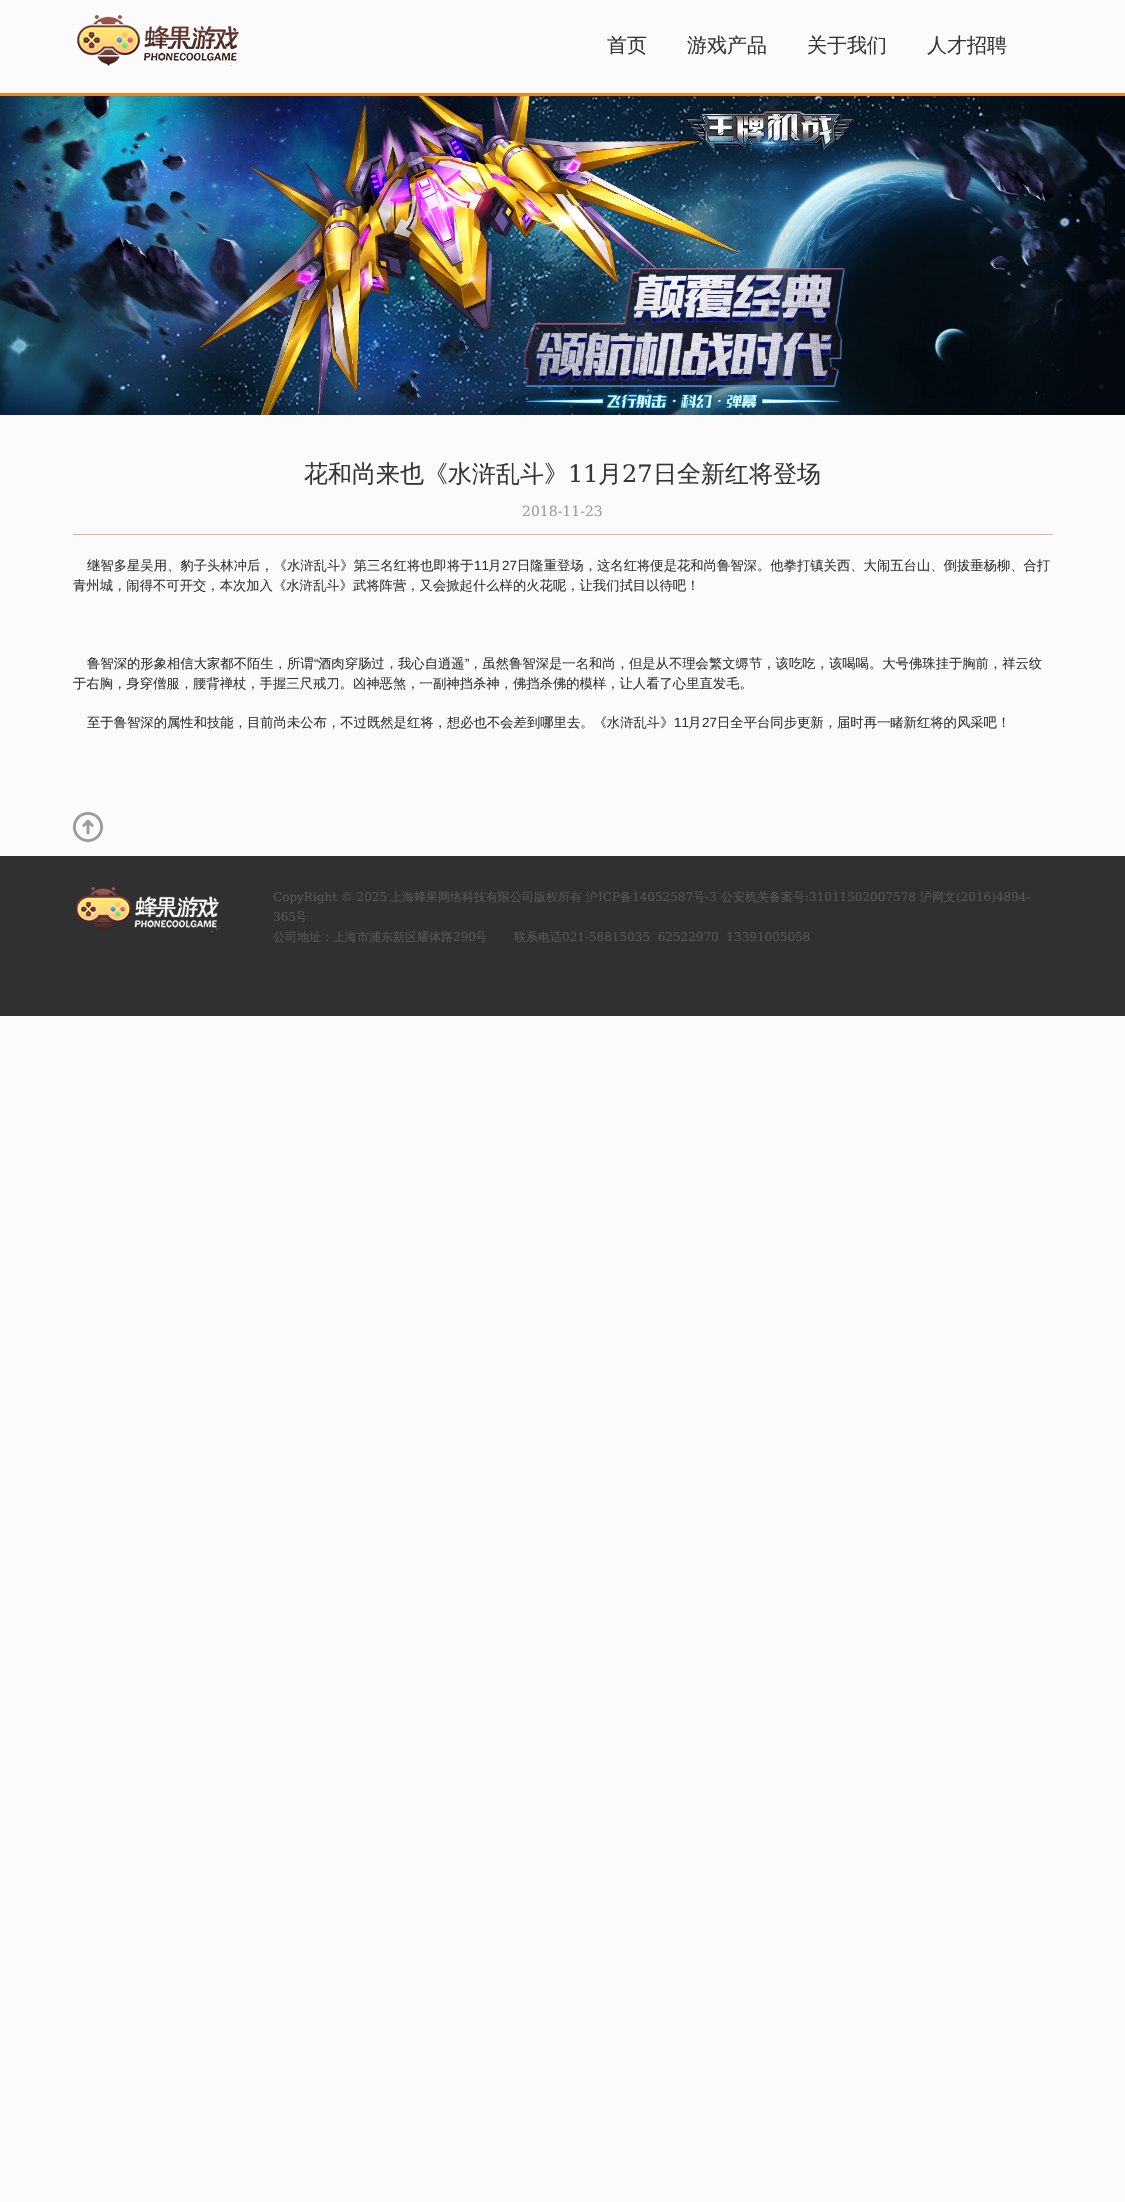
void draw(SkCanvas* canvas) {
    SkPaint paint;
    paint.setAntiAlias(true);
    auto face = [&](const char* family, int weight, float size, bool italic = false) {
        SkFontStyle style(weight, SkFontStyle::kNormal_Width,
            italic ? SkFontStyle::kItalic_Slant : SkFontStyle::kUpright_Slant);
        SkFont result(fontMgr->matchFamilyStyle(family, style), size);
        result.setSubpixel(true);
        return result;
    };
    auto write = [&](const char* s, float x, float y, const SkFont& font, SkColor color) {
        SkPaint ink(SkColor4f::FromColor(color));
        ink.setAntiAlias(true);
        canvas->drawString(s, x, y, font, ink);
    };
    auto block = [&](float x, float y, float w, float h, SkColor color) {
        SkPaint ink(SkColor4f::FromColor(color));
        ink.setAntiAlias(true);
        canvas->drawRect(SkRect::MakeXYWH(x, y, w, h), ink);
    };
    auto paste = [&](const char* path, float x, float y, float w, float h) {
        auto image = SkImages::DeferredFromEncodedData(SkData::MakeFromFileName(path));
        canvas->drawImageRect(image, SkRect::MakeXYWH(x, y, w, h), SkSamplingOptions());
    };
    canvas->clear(SkColorSetRGB(251, 251, 251));
    block(0, 93, 1125, 3, SkColorSetRGB(240, 133, 25));
    paste("pic1.png", 77, 15, 164, 51);
    auto kFont1 = face("WenQuanYi Zen Hei", 500, 20);
    write("首页", 607, 52, kFont1, SkColorSetRGB(53, 53, 53));
    write("游戏产品", 687, 52, kFont1, SkColorSetRGB(53, 53, 53));
    write("关于我们", 807, 52, kFont1, SkColorSetRGB(53, 53, 53));
    write("人才招聘", 927, 52, kFont1, SkColorSetRGB(53, 53, 53));
    paste("pic2.png", 0, 96, 1125, 319);
    auto kFont2 = face("WenQuanYi Zen Hei", 500, 24);
    write("花和尚来也《水浒乱斗》", 304, 482, kFont2, SkColorSetRGB(53, 53, 53));
    auto kFont3 = face("DejaVu Serif", 400, 24);
    write("11", 568, 482, kFont3, SkColorSetRGB(53, 53, 53));
    write("月", 598, 482, kFont2, SkColorSetRGB(53, 53, 53));
    write("27", 622, 482, kFont3, SkColorSetRGB(53, 53, 53));
    write("日全新红将登场", 653, 482, kFont2, SkColorSetRGB(53, 53, 53));
    block(73, 534, 980, 1, SkColorSetRGB(211, 182, 157));
    auto kFont4 = face("DejaVu Serif", 400, 14);
    write("2018-11-23", 522, 516, kFont4, SkColorSetRGB(155, 155, 155));
    auto kFont5 = face("WenQuanYi Zen Hei", 500, 13.33f);
    write("继智多星吴用、豹子头林冲后，《水浒乱斗》第三名红将也即将于", 87, 570, kFont5, SkColorSetRGB(53, 53, 53));
    auto kFont6 = face("Liberation Sans", 400, 13.33f);
    write("11", 474, 570, kFont6, SkColorSetRGB(53, 53, 53));
    write("月", 488, 570, kFont5, SkColorSetRGB(53, 53, 53));
    write("27", 502, 570, kFont6, SkColorSetRGB(53, 53, 53));
    write("日隆重登场，这名红将便是花和尚鲁智深。他拳打镇关西、大闹五台山、倒拔垂杨柳、合打", 517, 570, kFont5, SkColorSetRGB(53, 53, 53));
    write("青州城，闹得不可开交，本次加入《水浒乱斗》武将阵营，又会掀起什么样的火花呢，让我们拭目以待吧！", 73, 590, kFont5, SkColorSetRGB(53, 53, 53));
    write("鲁智深的形象相信大家都不陌生，所谓", 87, 668, kFont5, SkColorSetRGB(53, 53, 53));
    write("“", 314, 668, kFont6, SkColorSetRGB(53, 53, 53));
    write("酒肉穿肠过，我心自逍遥", 318, 668, kFont5, SkColorSetRGB(53, 53, 53));
    write("”", 465, 668, kFont6, SkColorSetRGB(53, 53, 53));
    write("，虽然鲁智深是一名和尚，但是从不理会繁文缛节，该吃吃，该喝喝。大号佛珠挂于胸前，祥云纹", 469, 668, kFont5, SkColorSetRGB(53, 53, 53));
    write("于右胸，身穿僧服，腰背禅杖，手握三尺戒刀。凶神恶煞，一副神挡杀神，佛挡杀佛的模样，让人看了心里直发毛。", 73, 688, kFont5, SkColorSetRGB(53, 53, 53));
    write("至于鲁智深的属性和技能，目前尚未公布，不过既然是红将，想必也不会差到哪里去。《水浒乱斗》", 87, 727, kFont5, SkColorSetRGB(53, 53, 53));
    write("11", 674, 727, kFont6, SkColorSetRGB(53, 53, 53));
    write("月", 688, 727, kFont5, SkColorSetRGB(53, 53, 53));
    write("27", 702, 727, kFont6, SkColorSetRGB(53, 53, 53));
    write("日全平台同步更新，届时再一睹新红将的风采吧！", 717, 727, kFont5, SkColorSetRGB(53, 53, 53));
    paste("pic3.png", 73, 812, 30, 30);
    block(0, 856, 1125, 160, SkColorSetRGB(48, 48, 48));
    paste("pic4.png", 76, 887, 145, 45);
    auto kFont7 = face("DejaVu Serif", 400, 12);
    write("CopyRight © 2025", 273, 901, kFont7, SkColorSetRGB(87, 87, 86));
    auto kFont8 = face("WenQuanYi Zen Hei", 500, 12);
    write("上海蜂果网络科技有限公司版权所有 沪", 390, 901, kFont8, SkColorSetRGB(87, 87, 86));
    write("ICP", 598, 901, kFont7, SkColorSetRGB(87, 87, 86));
    write("备", 620, 901, kFont8, SkColorSetRGB(87, 87, 86));
    write("14052587", 632, 901, kFont7, SkColorSetRGB(87, 87, 86));
    write("号", 693, 901, kFont8, SkColorSetRGB(87, 87, 86));
    write("-3", 705, 901, kFont7, SkColorSetRGB(87, 87, 86));
    write("公安机关备案号", 721, 901, kFont8, SkColorSetRGB(87, 87, 86));
    write(":31011502007578", 805, 901, kFont7, SkColorSetRGB(87, 87, 86));
    write("沪网文", 920, 901, kFont8, SkColorSetRGB(87, 87, 86));
    write("(2016)4894-", 956, 901, kFont7, SkColorSetRGB(87, 87, 86));
    write("365", 273, 921, kFont7, SkColorSetRGB(87, 87, 86));
    write("号", 295, 921, kFont8, SkColorSetRGB(87, 87, 86));
    write("公司地址：上海市浦东新区耀体路", 273, 941, kFont8, SkColorSetRGB(87, 87, 86));
    write("290", 453, 941, kFont7, SkColorSetRGB(87, 87, 86));
    write("号", 475, 941, kFont8, SkColorSetRGB(87, 87, 86));
    write("联系电话", 514, 941, kFont8, SkColorSetRGB(87, 87, 86));
    write("021-58815035  62522970  13391005058", 562, 941, kFont7, SkColorSetRGB(87, 87, 86));
}
